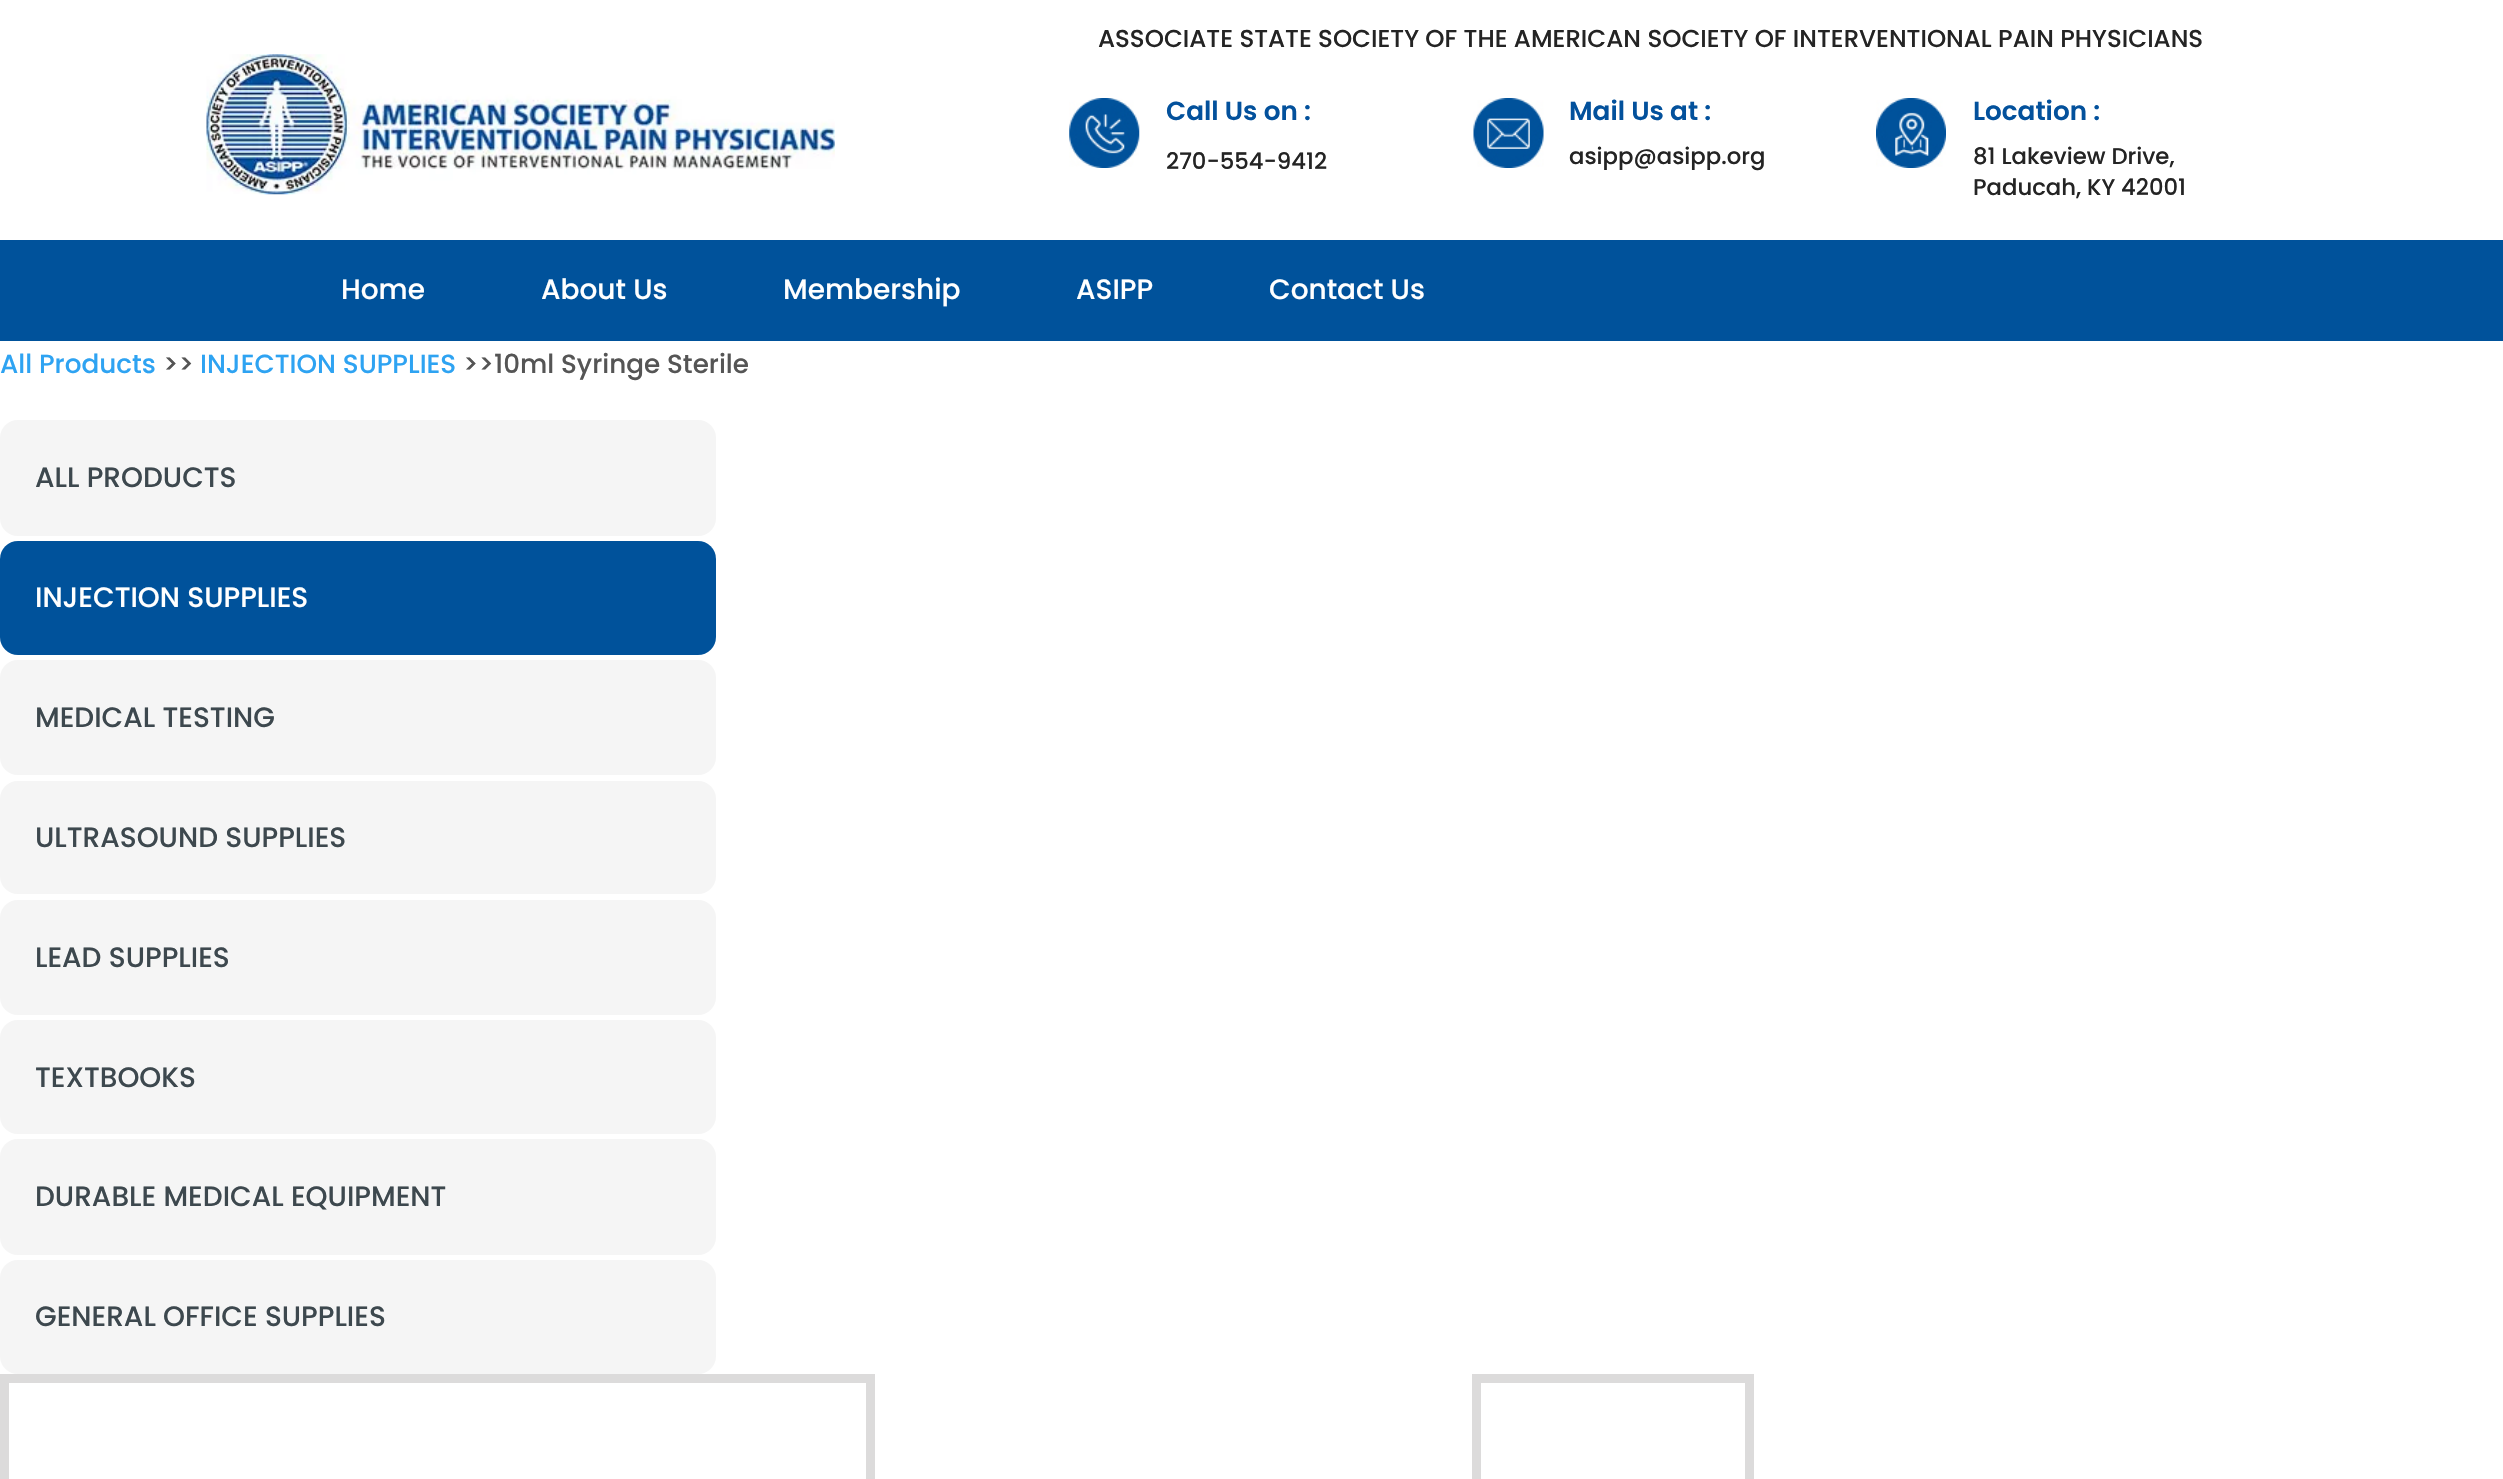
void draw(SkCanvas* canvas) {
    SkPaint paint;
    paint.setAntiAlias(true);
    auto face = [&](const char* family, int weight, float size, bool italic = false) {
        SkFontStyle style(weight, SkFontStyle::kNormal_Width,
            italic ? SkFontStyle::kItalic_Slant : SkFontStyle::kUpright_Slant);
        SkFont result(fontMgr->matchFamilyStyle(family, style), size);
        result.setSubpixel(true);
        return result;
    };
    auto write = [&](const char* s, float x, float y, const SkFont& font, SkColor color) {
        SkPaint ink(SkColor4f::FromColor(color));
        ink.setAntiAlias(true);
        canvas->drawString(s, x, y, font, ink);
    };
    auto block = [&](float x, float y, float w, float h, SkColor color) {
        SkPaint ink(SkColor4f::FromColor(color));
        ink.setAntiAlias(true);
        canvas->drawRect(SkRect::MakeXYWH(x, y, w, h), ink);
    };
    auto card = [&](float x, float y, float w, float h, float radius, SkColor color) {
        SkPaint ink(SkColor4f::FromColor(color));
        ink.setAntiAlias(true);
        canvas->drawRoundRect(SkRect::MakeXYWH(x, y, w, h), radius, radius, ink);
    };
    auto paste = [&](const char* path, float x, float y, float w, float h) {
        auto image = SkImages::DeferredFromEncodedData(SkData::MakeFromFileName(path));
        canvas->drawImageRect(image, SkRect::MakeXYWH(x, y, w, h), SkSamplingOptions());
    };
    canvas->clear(SK_ColorWHITE);
    paste("pic1.png", 206, 54, 629, 141);
    auto kFont1 = face("Poppins", 500, 24.5f);
    write("ASSOCIATE STATE SOCIETY OF THE AMERICAN SOCIETY OF INTERVENTIONAL PAIN PHYSICIANS", 1098, 47, kFont1, SkColorSetRGB(36, 36, 36));
    paste("pic2.png", 1069, 98, 71, 70);
    auto kFont2 = face("Poppins", 600, 26.25f);
    write("Call Us on :", 1166, 120, kFont2, SkColorSetRGB(3, 81, 156));
    auto kFont3 = face("Poppins", 500, 22.75f);
    write("270-554-9412", 1166, 169, kFont3, SkColorSetRGB(36, 36, 36));
    paste("pic3.png", 1473, 98, 71, 70);
    write("Mail Us at :", 1569, 120, kFont2, SkColorSetRGB(3, 81, 156));
    write("asipp@asipp.org", 1569, 164, kFont3, SkColorSetRGB(36, 36, 36));
    paste("pic4.png", 1876, 98, 70, 70);
    write("Location :", 1973, 120, kFont2, SkColorSetRGB(3, 81, 156));
    write("81 Lakeview Drive,", 1973, 164, kFont3, SkColorSetRGB(36, 36, 36));
    write("Paducah, KY 42001", 1973, 195, kFont3, SkColorSetRGB(36, 36, 36));
    block(0, 240, 2503, 101, SkColorSetRGB(0, 82, 155));
    auto kFont4 = face("Poppins", 500, 28);
    write("Home", 341, 299, kFont4, SK_ColorWHITE);
    write("About Us", 541, 299, kFont4, SK_ColorWHITE);
    write("Membership", 783, 299, kFont4, SK_ColorWHITE);
    write("ASIPP", 1076, 299, kFont4, SK_ColorWHITE);
    write("Contact Us", 1269, 299, kFont4, SK_ColorWHITE);
    auto kFont5 = face("Poppins", 500, 26.25f);
    write("All Products", 0, 373, kFont5, SkColorSetRGB(46, 163, 242));
    write(">>", 163, 373, kFont5, SkColorSetRGB(85, 85, 85));
    write("INJECTION SUPPLIES", 200, 373, kFont5, SkColorSetRGB(46, 163, 242));
    write(">>10ml Syringe Sterile", 463, 373, kFont5, SkColorSetRGB(85, 85, 85));
    card(0, 420, 716, 116, 18, SkColorSetRGB(245, 245, 245));
    write("ALL PRODUCTS", 35, 487, kFont4, SkColorSetRGB(61, 72, 78));
    card(0, 541, 716, 114, 18, SkColorSetRGB(0, 82, 155));
    write("INJECTION SUPPLIES", 35, 607, kFont4, SK_ColorWHITE);
    card(0, 660, 716, 115, 18, SkColorSetRGB(245, 245, 245));
    write("MEDICAL TESTING", 35, 727, kFont4, SkColorSetRGB(61, 72, 78));
    card(0, 781, 716, 113, 18, SkColorSetRGB(245, 245, 245));
    write("ULTRASOUND SUPPLIES", 35, 847, kFont4, SkColorSetRGB(61, 72, 78));
    card(0, 900, 716, 115, 18, SkColorSetRGB(245, 245, 245));
    write("LEAD SUPPLIES", 35, 967, kFont4, SkColorSetRGB(61, 72, 78));
    card(0, 1020, 716, 114, 18, SkColorSetRGB(245, 245, 245));
    write("TEXTBOOKS", 35, 1087, kFont4, SkColorSetRGB(61, 72, 78));
    card(0, 1139, 716, 116, 18, SkColorSetRGB(245, 245, 245));
    write("DURABLE MEDICAL EQUIPMENT", 35, 1206, kFont4, SkColorSetRGB(61, 72, 78));
    card(0, 1260, 716, 114, 18, SkColorSetRGB(245, 245, 245));
    write("GENERAL OFFICE SUPPLIES", 35, 1326, kFont4, SkColorSetRGB(61, 72, 78));
    paint.setStyle(SkPaint::kStroke_Style);
    paint.setStrokeWidth(9);
    paint.setColor(SkColorSetRGB(220, 219, 219));
    canvas->drawRect(SkRect::MakeXYWH(4.5f, 1378.5f, 866, 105), paint);
    canvas->drawRect(SkRect::MakeXYWH(1476.5f, 1378.5f, 273, 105), paint);
}
